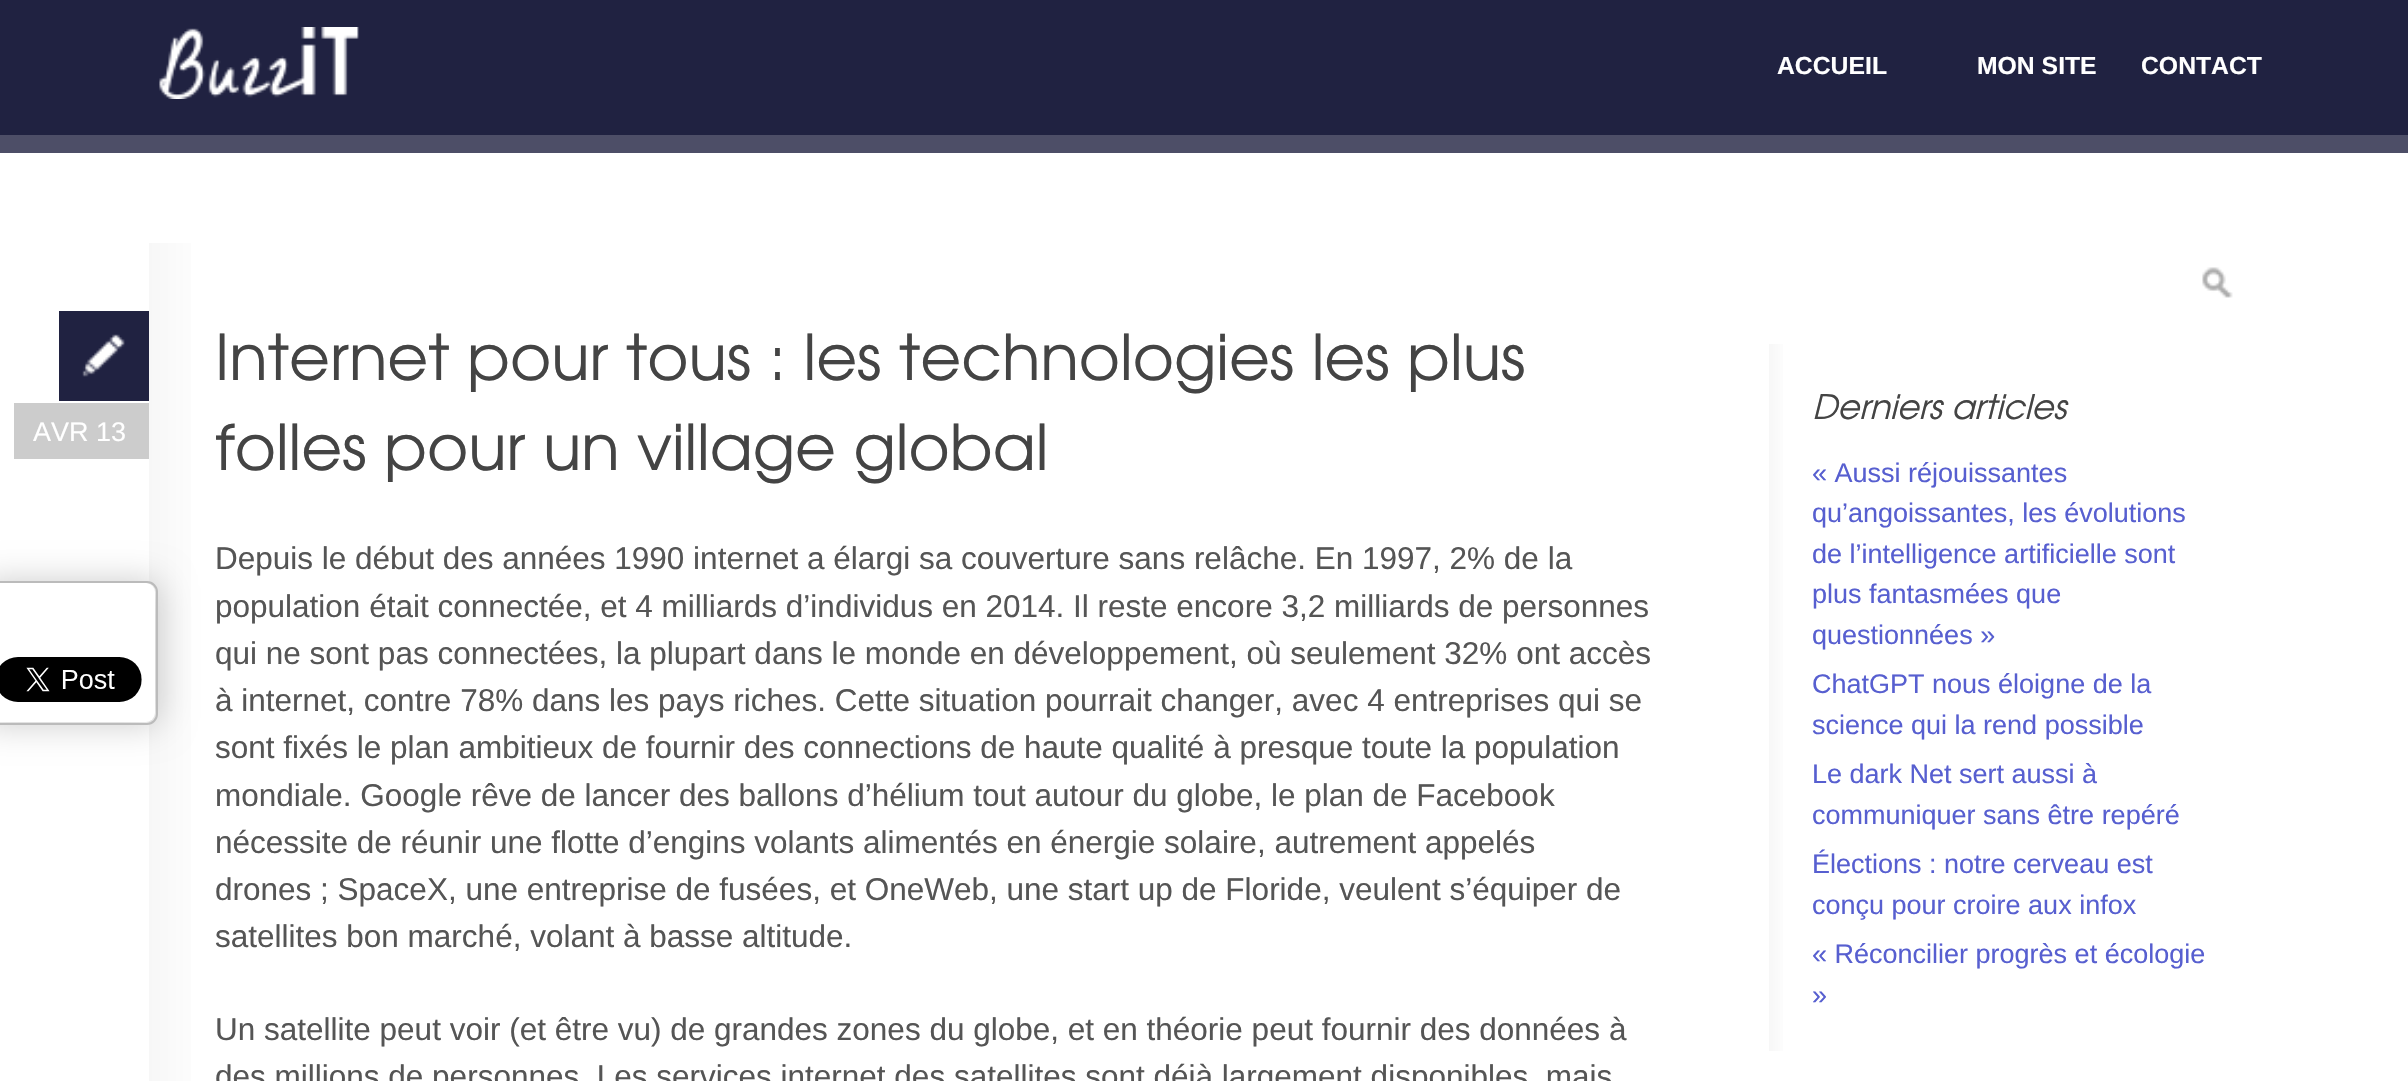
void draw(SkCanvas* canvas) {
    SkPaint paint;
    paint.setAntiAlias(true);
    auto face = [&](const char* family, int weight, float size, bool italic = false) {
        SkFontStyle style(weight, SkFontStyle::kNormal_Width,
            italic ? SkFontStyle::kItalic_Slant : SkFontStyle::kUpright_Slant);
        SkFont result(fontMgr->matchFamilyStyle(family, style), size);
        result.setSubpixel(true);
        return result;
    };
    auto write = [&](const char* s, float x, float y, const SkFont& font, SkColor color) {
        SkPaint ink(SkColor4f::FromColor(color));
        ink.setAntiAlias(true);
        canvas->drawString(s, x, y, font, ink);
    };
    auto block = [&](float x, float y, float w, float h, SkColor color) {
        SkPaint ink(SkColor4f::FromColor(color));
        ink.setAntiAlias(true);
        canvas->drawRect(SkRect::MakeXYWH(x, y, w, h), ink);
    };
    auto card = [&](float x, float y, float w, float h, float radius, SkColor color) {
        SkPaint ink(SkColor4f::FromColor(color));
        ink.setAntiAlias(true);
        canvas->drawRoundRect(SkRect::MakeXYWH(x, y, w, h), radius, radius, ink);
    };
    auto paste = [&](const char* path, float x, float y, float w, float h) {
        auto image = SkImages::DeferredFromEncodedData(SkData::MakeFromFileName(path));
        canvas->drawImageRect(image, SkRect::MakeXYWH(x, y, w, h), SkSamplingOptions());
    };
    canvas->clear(SK_ColorWHITE);
    block(0, 135, 2408, 18, SkColorSetRGB(77, 78, 103));
    block(0, 0, 2408, 135, SkColorSetRGB(32, 34, 65));
    paste("pic1.png", 159, 27, 200, 72);
    auto kFont1 = face("Liberation Sans", 700, 24.75f);
    write("ACCUEIL", 1777, 74, kFont1, SK_ColorWHITE);
    write("MON SITE", 1977, 74, kFont1, SK_ColorWHITE);
    write("CONTACT", 2141, 74, kFont1, SK_ColorWHITE);
    {
        const SkColor colors[] = {SkColorSetRGB(247, 247, 247), SK_ColorWHITE, SK_ColorWHITE};
        const float stops[] = {0, 0.04f, 1};
        const SkPoint ends[] = {{148, 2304}, {1724, 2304}};
        paint.setShader(SkGradientShader::MakeLinear(ends, colors, stops, 3, SkTileMode::kClamp));
        paint.setAlpha(255);
    }
    canvas->drawRect(SkRect::MakeXYWH(149, 243, 42, 838), paint);
    block(59, 311, 90, 90, SkColorSetRGB(32, 34, 65));
    paste("pic2.png", 82, 334, 43, 43);
    auto kFont2 = face("TeX Gyre Adventor", 400, 63);
    write("Internet pour tous : les technologies les plus", 215, 380, kFont2, SkColorSetRGB(68, 68, 68));
    write("folles pour un village global", 215, 470, kFont2, SkColorSetRGB(68, 68, 68));
    block(14, 403, 135, 56, SkColorSetRGB(204, 204, 204));
    auto kFont3 = face("Liberation Sans", 400, 27);
    write("AVR 13", 33, 441, kFont3, SK_ColorWHITE);
    auto kFont4 = face("Liberation Sans", 400, 31.5f);
    write("Depuis le début des années 1990 internet a élargi sa couverture sans relâche. En 1997, 2% de la", 215, 569, kFont4, SkColorSetRGB(85, 85, 85));
    write("population était connectée, et 4 milliards d’individus en 2014. Il reste encore 3,2 milliards de personnes", 215, 617, kFont4, SkColorSetRGB(85, 85, 85));
    write("qui ne sont pas connectées, la plupart dans le monde en développement, où seulement 32% ont accès", 215, 664, kFont4, SkColorSetRGB(85, 85, 85));
    write("à internet, contre 78% dans les pays riches. Cette situation pourrait changer, avec 4 entreprises qui se", 215, 711, kFont4, SkColorSetRGB(85, 85, 85));
    write("sont fixés le plan ambitieux de fournir des connections de haute qualité à presque toute la population", 215, 758, kFont4, SkColorSetRGB(85, 85, 85));
    write("mondiale. Google rêve de lancer des ballons d’hélium tout autour du globe, le plan de Facebook", 215, 806, kFont4, SkColorSetRGB(85, 85, 85));
    write("nécessite de réunir une flotte d’engins volants alimentés en énergie solaire, autrement appelés", 215, 853, kFont4, SkColorSetRGB(85, 85, 85));
    write("drones ; SpaceX, une entreprise de fusées, et OneWeb, une start up de Floride, veulent s’équiper de", 215, 900, kFont4, SkColorSetRGB(85, 85, 85));
    write("satellites bon marché, volant à basse altitude.", 215, 947, kFont4, SkColorSetRGB(85, 85, 85));
    write("Un satellite peut voir (et être vu) de grandes zones du globe, et en théorie peut fournir des données à", 215, 1040, kFont4, SkColorSetRGB(85, 85, 85));
    write("des millions de personnes. Les services internet des satellites sont déjà largement disponibles, mais", 215, 1087, kFont4, SkColorSetRGB(85, 85, 85));
    paste("pic3.png", 2202, 267, 31, 31);
    {
        const SkColor colors[] = {SkColorSetRGB(247, 247, 247), SK_ColorWHITE, SK_ColorWHITE};
        const float stops[] = {0, 0.04f, 1};
        const SkPoint ends[] = {{1769, 698}, {2264, 698}};
        paint.setShader(SkGradientShader::MakeLinear(ends, colors, stops, 3, SkTileMode::kClamp));
        paint.setAlpha(255);
    }
    canvas->drawRect(SkRect::MakeXYWH(1769, 344, 14, 707), paint);
    auto kFont5 = face("TeX Gyre Adventor", 400, 33.75f, true);
    write("Derniers articles", 1812, 419, kFont5, SkColorSetRGB(68, 68, 68));
    write("« Aussi réjouissantes", 1812, 482, kFont3, SkColorSetRGB(87, 95, 208));
    write("qu’angoissantes, les évolutions", 1812, 522, kFont3, SkColorSetRGB(87, 95, 208));
    write("de l’intelligence artificielle sont", 1812, 563, kFont3, SkColorSetRGB(87, 95, 208));
    write("plus fantasmées que", 1812, 603, kFont3, SkColorSetRGB(87, 95, 208));
    write("questionnées »", 1812, 644, kFont3, SkColorSetRGB(87, 95, 208));
    write("ChatGPT nous éloigne de la", 1812, 693, kFont3, SkColorSetRGB(87, 95, 208));
    write("science qui la rend possible", 1812, 734, kFont3, SkColorSetRGB(87, 95, 208));
    write("Le dark Net sert aussi à", 1812, 783, kFont3, SkColorSetRGB(87, 95, 208));
    write("communiquer sans être repéré", 1812, 824, kFont3, SkColorSetRGB(87, 95, 208));
    write("Élections : notre cerveau est", 1812, 873, kFont3, SkColorSetRGB(87, 95, 208));
    write("conçu pour croire aux infox", 1812, 914, kFont3, SkColorSetRGB(87, 95, 208));
    write("« Réconcilier progrès et écologie", 1812, 963, kFont3, SkColorSetRGB(87, 95, 208));
    write("»", 1812, 1004, kFont3, SkColorSetRGB(87, 95, 208));
    paint.setShader(nullptr);
    paint.setColor(SkColorSetARGB(51, 0, 0, 0));
    paint.setMaskFilter(SkMaskFilter::MakeBlur(kNormal_SkBlurStyle, 17));
    canvas->drawRoundRect(SkRect::MakeXYWH(-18, 581, 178, 144), 11, 11, paint);
    paint.setMaskFilter(nullptr);
    card(-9, 583, 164, 139, 9, SK_ColorWHITE);
    paint.setStyle(SkPaint::kStroke_Style);
    paint.setStrokeWidth(2);
    paint.setColor(SkColorSetRGB(187, 187, 187));
    canvas->drawRoundRect(SkRect::MakeXYWH(-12, 582, 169, 142), 10, 10, paint);
    paste("pic4.png", 0, 657, 142, 45);
}
